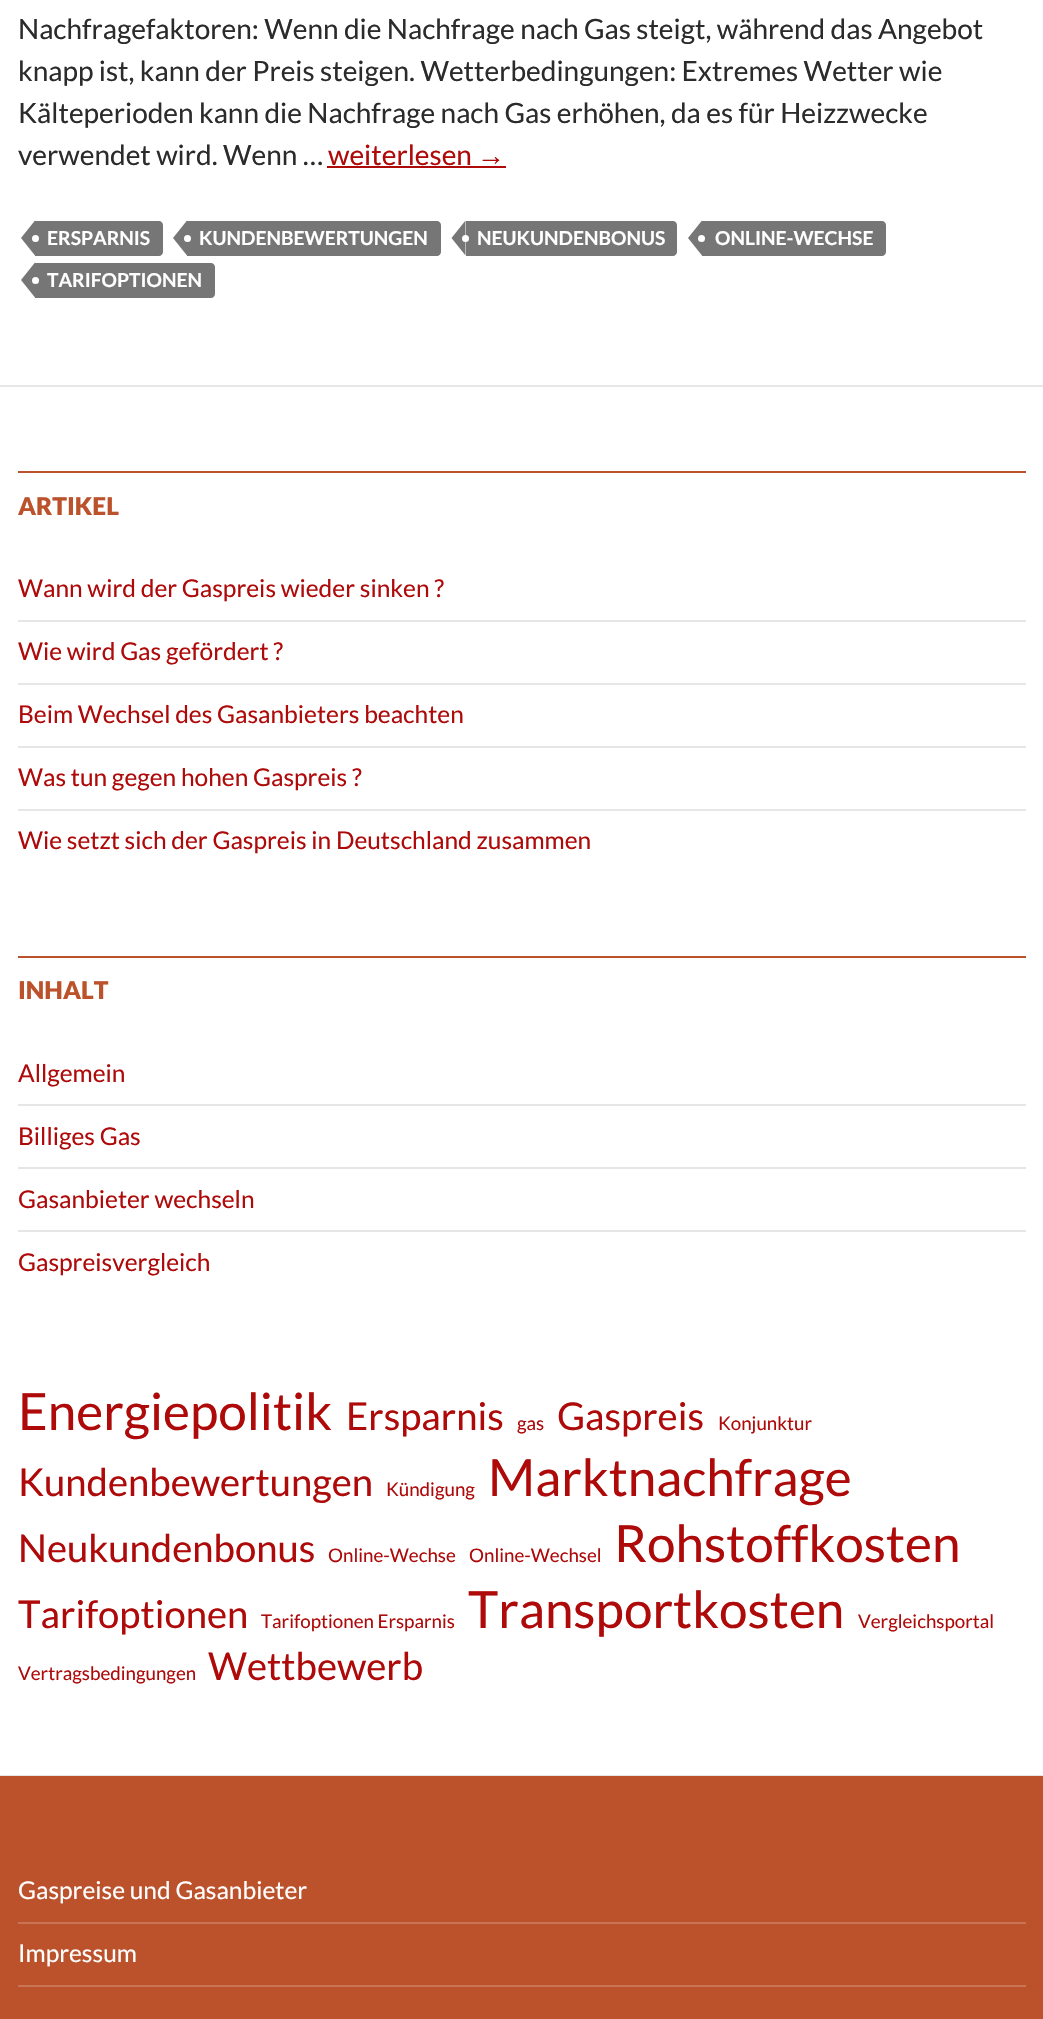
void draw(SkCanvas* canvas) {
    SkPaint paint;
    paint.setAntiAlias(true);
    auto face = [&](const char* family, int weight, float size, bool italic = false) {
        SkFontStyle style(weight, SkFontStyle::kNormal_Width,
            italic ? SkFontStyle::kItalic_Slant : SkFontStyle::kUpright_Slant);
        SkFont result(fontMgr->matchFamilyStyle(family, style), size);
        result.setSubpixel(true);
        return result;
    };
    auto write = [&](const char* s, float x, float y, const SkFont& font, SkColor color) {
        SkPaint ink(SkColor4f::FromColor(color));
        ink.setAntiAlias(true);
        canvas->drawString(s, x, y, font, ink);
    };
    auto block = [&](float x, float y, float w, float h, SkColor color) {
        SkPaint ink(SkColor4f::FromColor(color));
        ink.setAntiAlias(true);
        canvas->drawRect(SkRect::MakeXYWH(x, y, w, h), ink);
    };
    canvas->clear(SK_ColorWHITE);
    auto kFont1 = face("Lato", 400, 28);
    write("Nachfragefaktoren: Wenn die Nachfrage nach Gas steigt, während das Angebot", 18, 39, kFont1, SkColorSetRGB(43, 43, 43));
    write("knapp ist, kann der Preis steigen. Wetterbedingungen: Extremes Wetter wie", 18, 81, kFont1, SkColorSetRGB(43, 43, 43));
    write("Kälteperioden kann die Nachfrage nach Gas erhöhen, da es für Heizzwecke", 18, 123, kFont1, SkColorSetRGB(43, 43, 43));
    write("verwendet wird. Wenn …", 18, 165, kFont1, SkColorSetRGB(43, 43, 43));
    write("weiterlesen", 328, 165, kFont1, SkColorSetRGB(175, 10, 10));
    auto kFont2 = face("Liberation Sans", 400, 28);
    write("→", 477, 165, kFont2, SkColorSetRGB(175, 10, 10));
    block(327, 166, 179, 2, SkColorSetRGB(175, 10, 10));
    paint.setColor(SkColorSetRGB(118, 118, 118));
    canvas->drawPath(SkPathBuilder().moveTo(35, 221).lineTo(159, 221).cubicTo(161, 221, 163, 223, 163, 225).lineTo(163, 252).cubicTo(163, 254, 161, 256, 159, 256).lineTo(35, 256).close().detach(), paint);
    canvas->drawPath(SkPathBuilder().moveTo(35, 220.5f).lineTo(35, 255.5f).lineTo(21, 238).close().detach(), paint);
    paint.setColor(SK_ColorWHITE);
    canvas->drawCircle(35.5f, 238.5f, 3.5f, paint);
    auto kFont3 = face("Lato", 700, 19.25f);
    write("ERSPARNIS", 47, 245, kFont3, SK_ColorWHITE);
    paint.setColor(SkColorSetRGB(118, 118, 118));
    canvas->drawPath(SkPathBuilder().moveTo(187, 221).lineTo(437, 221).cubicTo(439, 221, 441, 223, 441, 225).lineTo(441, 252).cubicTo(441, 254, 439, 256, 437, 256).lineTo(187, 256).close().detach(), paint);
    canvas->drawPath(SkPathBuilder().moveTo(187, 220.5f).lineTo(187, 255.5f).lineTo(173, 238).close().detach(), paint);
    paint.setColor(SK_ColorWHITE);
    canvas->drawCircle(187.5f, 238.5f, 3.5f, paint);
    write("KUNDENBEWERTUNGEN", 199, 245, kFont3, SK_ColorWHITE);
    paint.setColor(SkColorSetRGB(118, 118, 118));
    canvas->drawPath(SkPathBuilder().moveTo(466, 221).lineTo(673, 221).cubicTo(675, 221, 677, 223, 677, 225).lineTo(677, 252).cubicTo(677, 254, 675, 256, 673, 256).lineTo(466, 256).close().detach(), paint);
    canvas->drawPath(SkPathBuilder().moveTo(465.5f, 220.5f).lineTo(465.5f, 255.5f).lineTo(451.5f, 238).close().detach(), paint);
    write("NEUKUNDENBONUS", 477, 245, kFont3, SK_ColorWHITE);
    paint.setColor(SK_ColorWHITE);
    canvas->drawCircle(465.5f, 238.5f, 3.5f, paint);
    paint.setColor(SkColorSetRGB(118, 118, 118));
    canvas->drawPath(SkPathBuilder().moveTo(702, 221).lineTo(882, 221).cubicTo(884, 221, 886, 223, 886, 225).lineTo(886, 252).cubicTo(886, 254, 884, 256, 882, 256).lineTo(702, 256).close().detach(), paint);
    canvas->drawPath(SkPathBuilder().moveTo(702, 220.5f).lineTo(702, 255.5f).lineTo(688, 238).close().detach(), paint);
    write("ONLINE-WECHSE", 715, 245, kFont3, SK_ColorWHITE);
    paint.setColor(SK_ColorWHITE);
    canvas->drawCircle(701.5f, 238.5f, 3.5f, paint);
    paint.setColor(SkColorSetRGB(118, 118, 118));
    canvas->drawPath(SkPathBuilder().moveTo(35, 263).lineTo(211, 263).cubicTo(213, 263, 215, 265, 215, 267).lineTo(215, 294).cubicTo(215, 296, 213, 298, 211, 298).lineTo(35, 298).close().detach(), paint);
    canvas->drawPath(SkPathBuilder().moveTo(35, 262.5f).lineTo(35, 297.5f).lineTo(21, 280).close().detach(), paint);
    paint.setColor(SK_ColorWHITE);
    canvas->drawCircle(35.5f, 280.5f, 3.5f, paint);
    write("TARIFOPTIONEN", 47, 287, kFont3, SK_ColorWHITE);
    block(0, 385, 1043, 2, SkColorSetRGB(230, 230, 230));
    block(0, 1775, 1043, 1, SkColorSetRGB(230, 230, 230));
    block(18, 471, 1008, 2, SkColorSetRGB(188, 82, 43));
    auto kFont4 = face("Lato", 900, 24.5f);
    write("ARTIKEL", 18, 515, kFont4, SkColorSetRGB(188, 82, 43));
    auto kFont5 = face("Lato", 400, 24.5f);
    write("Wann wird der Gaspreis wieder sinken ?", 18, 597, kFont5, SkColorSetRGB(175, 10, 10));
    block(18, 620, 1008, 2, SkColorSetRGB(230, 230, 230));
    write("Wie wird Gas gefördert ?", 18, 660, kFont5, SkColorSetRGB(175, 10, 10));
    block(18, 683, 1008, 2, SkColorSetRGB(230, 230, 230));
    write("Beim Wechsel des Gasanbieters beachten", 18, 723, kFont5, SkColorSetRGB(175, 10, 10));
    block(18, 746, 1008, 2, SkColorSetRGB(230, 230, 230));
    write("Was tun gegen hohen Gaspreis ?", 18, 786, kFont5, SkColorSetRGB(175, 10, 10));
    block(18, 809, 1008, 2, SkColorSetRGB(230, 230, 230));
    write("Wie setzt sich der Gaspreis in Deutschland zusammen", 18, 849, kFont5, SkColorSetRGB(175, 10, 10));
    block(18, 956, 1008, 2, SkColorSetRGB(188, 82, 43));
    write("INHALT", 18, 999, kFont4, SkColorSetRGB(188, 82, 43));
    write("Allgemein", 18, 1082, kFont5, SkColorSetRGB(175, 10, 10));
    block(18, 1104, 1008, 2, SkColorSetRGB(230, 230, 230));
    write("Billiges Gas", 18, 1145, kFont5, SkColorSetRGB(175, 10, 10));
    block(18, 1167, 1008, 2, SkColorSetRGB(230, 230, 230));
    write("Gasanbieter wechseln", 18, 1208, kFont5, SkColorSetRGB(175, 10, 10));
    block(18, 1230, 1008, 2, SkColorSetRGB(230, 230, 230));
    write("Gaspreisvergleich", 18, 1271, kFont5, SkColorSetRGB(175, 10, 10));
    auto kFont6 = face("Lato", 400, 51.25f);
    write("Energiepolitik", 18, 1430, kFont6, SkColorSetRGB(175, 10, 10));
    auto kFont7 = face("Lato", 400, 38.25f);
    write("Ersparnis", 346, 1430, kFont7, SkColorSetRGB(175, 10, 10));
    auto kFont8 = face("Lato", 400, 18.75f);
    write("gas", 517, 1430, kFont8, SkColorSetRGB(175, 10, 10));
    write("Gaspreis", 557, 1430, kFont7, SkColorSetRGB(175, 10, 10));
    write("Konjunktur", 718, 1430, kFont8, SkColorSetRGB(175, 10, 10));
    write("Kundenbewertungen", 18, 1496, kFont7, SkColorSetRGB(175, 10, 10));
    write("Kündigung", 386, 1496, kFont8, SkColorSetRGB(175, 10, 10));
    write("Marktnachfrage", 488, 1496, kFont6, SkColorSetRGB(175, 10, 10));
    write("Neukundenbonus", 18, 1562, kFont7, SkColorSetRGB(175, 10, 10));
    write("Online-Wechse", 328, 1562, kFont8, SkColorSetRGB(175, 10, 10));
    write("Online-Wechsel", 469, 1562, kFont8, SkColorSetRGB(175, 10, 10));
    write("Rohstoffkosten", 614, 1562, kFont6, SkColorSetRGB(175, 10, 10));
    write("Tarifoptionen", 18, 1628, kFont7, SkColorSetRGB(175, 10, 10));
    write("Tarifoptionen Ersparnis", 261, 1628, kFont8, SkColorSetRGB(175, 10, 10));
    write("Transportkosten", 468, 1628, kFont6, SkColorSetRGB(175, 10, 10));
    write("Vergleichsportal", 858, 1628, kFont8, SkColorSetRGB(175, 10, 10));
    write("Vertragsbedingungen", 18, 1680, kFont8, SkColorSetRGB(175, 10, 10));
    write("Wettbewerb", 208, 1680, kFont7, SkColorSetRGB(175, 10, 10));
    block(0, 1776, 1043, 243, SkColorSetRGB(188, 82, 43));
    write("Gaspreise und Gasanbieter", 18, 1899, kFont5, SK_ColorWHITE);
    block(18, 1922, 1008, 2, SkColorSetRGB(201, 117, 85));
    write("Impressum", 18, 1962, kFont5, SK_ColorWHITE);
    block(18, 1985, 1008, 2, SkColorSetRGB(201, 117, 85));
}
